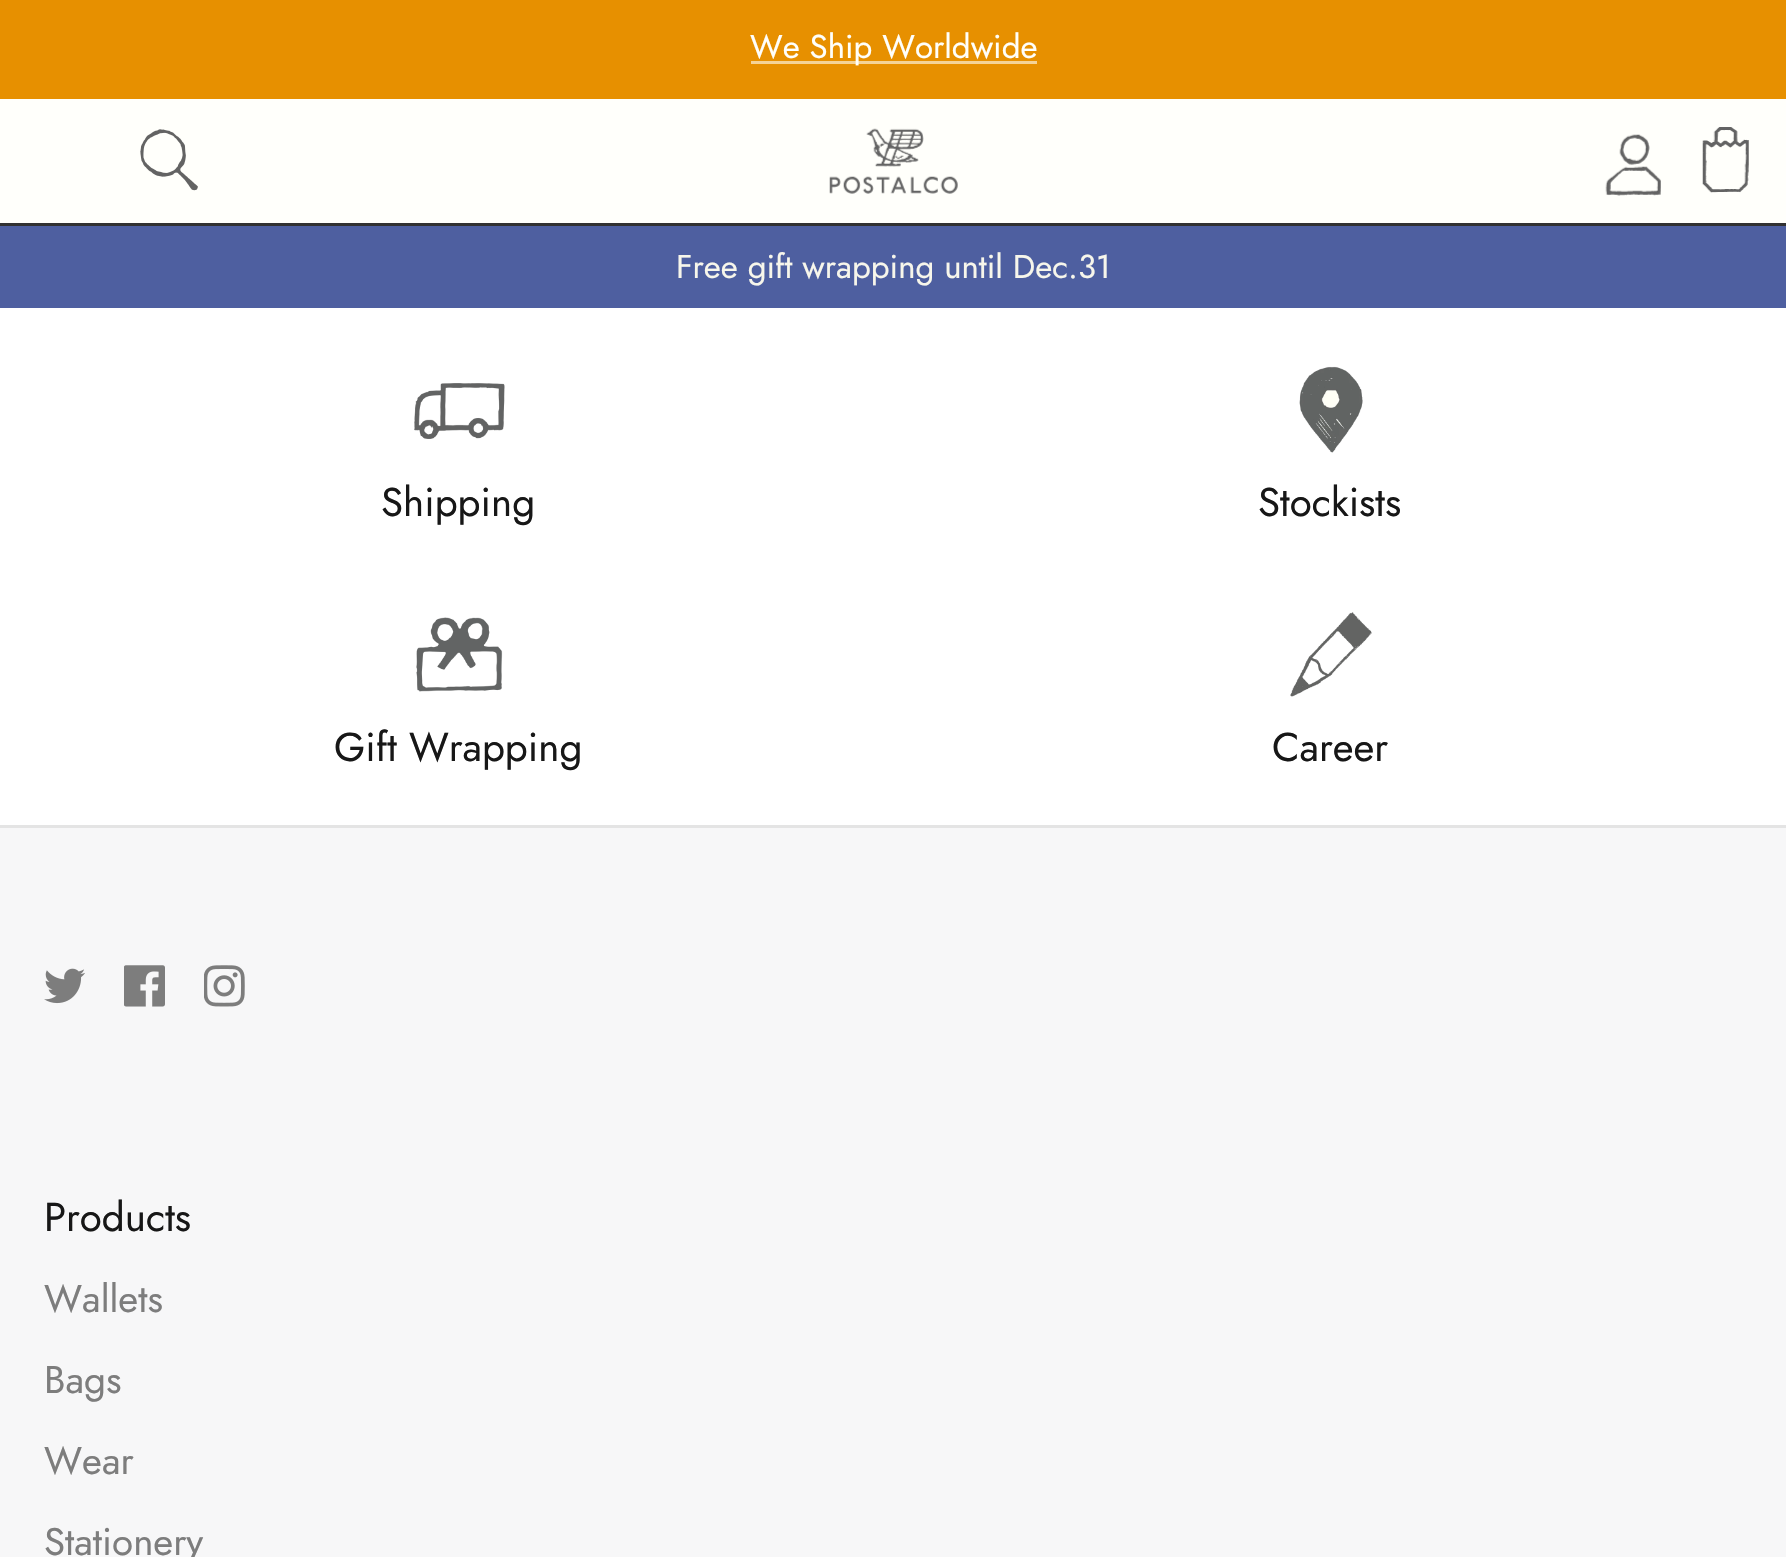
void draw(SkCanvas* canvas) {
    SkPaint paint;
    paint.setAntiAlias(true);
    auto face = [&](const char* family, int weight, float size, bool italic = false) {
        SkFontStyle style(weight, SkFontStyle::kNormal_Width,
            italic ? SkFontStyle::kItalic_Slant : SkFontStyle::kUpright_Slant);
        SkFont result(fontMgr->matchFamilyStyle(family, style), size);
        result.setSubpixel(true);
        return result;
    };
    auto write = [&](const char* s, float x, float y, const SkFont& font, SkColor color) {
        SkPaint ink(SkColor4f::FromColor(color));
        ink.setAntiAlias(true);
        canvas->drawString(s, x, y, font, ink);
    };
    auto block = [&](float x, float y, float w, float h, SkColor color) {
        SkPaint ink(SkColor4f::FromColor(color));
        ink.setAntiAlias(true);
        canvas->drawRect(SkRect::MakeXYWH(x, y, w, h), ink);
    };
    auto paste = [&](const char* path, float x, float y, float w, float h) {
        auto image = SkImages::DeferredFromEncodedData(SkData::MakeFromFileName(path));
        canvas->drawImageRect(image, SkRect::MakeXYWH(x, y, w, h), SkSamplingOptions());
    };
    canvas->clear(SkColorSetRGB(255, 255, 251));
    block(0, 0, 1786, 99, SkColorSetRGB(231, 144, 0));
    block(751, 61, 286, 3, SkColorSetRGB(245, 211, 151));
    auto kFont1 = face("Jost", 400, 33);
    write("We Ship Worldwide", 750, 58, kFont1, SkColorSetRGB(255, 255, 251));
    block(0, 223, 1786, 3, SkColorSetRGB(49, 49, 49));
    paste("pic1.png", 140, 129, 58, 62);
    paste("pic2.png", 829, 128, 129, 66);
    paste("pic3.png", 1605, 134, 56, 62);
    paste("pic4.png", 1702, 127, 47, 66);
    block(0, 226, 1786, 82, SkColorSetRGB(78, 95, 160));
    write("Free gift wrapping until Dec.31", 676, 278, kFont1, SkColorSetRGB(247, 246, 235));
    block(0, 828, 1786, 729, SkColorSetRGB(247, 247, 248));
    block(0, 308, 1786, 517, SK_ColorWHITE);
    paste("pic5.png", 414, 383, 91, 56);
    auto kFont2 = face("Jost", 400, 40.25f);
    write("Shipping", 381, 516, kFont2, SkColorSetRGB(23, 23, 23));
    paste("pic6.png", 1299, 366, 64, 87);
    write("Stockists", 1258, 516, kFont2, SkColorSetRGB(23, 23, 23));
    paste("pic7.png", 416, 617, 87, 75);
    write("Gift Wrapping", 334, 761, kFont2, SkColorSetRGB(23, 23, 23));
    paste("pic8.png", 1290, 612, 82, 85);
    write("Career", 1272, 761, kFont2, SkColorSetRGB(23, 23, 23));
    block(0, 825, 1786, 3, SkColorSetRGB(228, 228, 228));
    paste("pic9.png", 44, 968, 41, 36);
    paste("pic10.png", 124, 965, 41, 42);
    paste("pic11.png", 204, 965, 41, 42);
    write("Products", 44, 1231, kFont2, SkColorSetRGB(23, 23, 23));
    auto kFont3 = face("Jost", 400, 38.5f);
    write("Wallets", 44, 1312, kFont3, SkColorSetRGB(125, 125, 125));
    write("Bags", 44, 1393, kFont3, SkColorSetRGB(125, 125, 125));
    write("Wear", 44, 1474, kFont3, SkColorSetRGB(125, 125, 125));
    write("Stationery", 44, 1555, kFont3, SkColorSetRGB(125, 125, 125));
}
